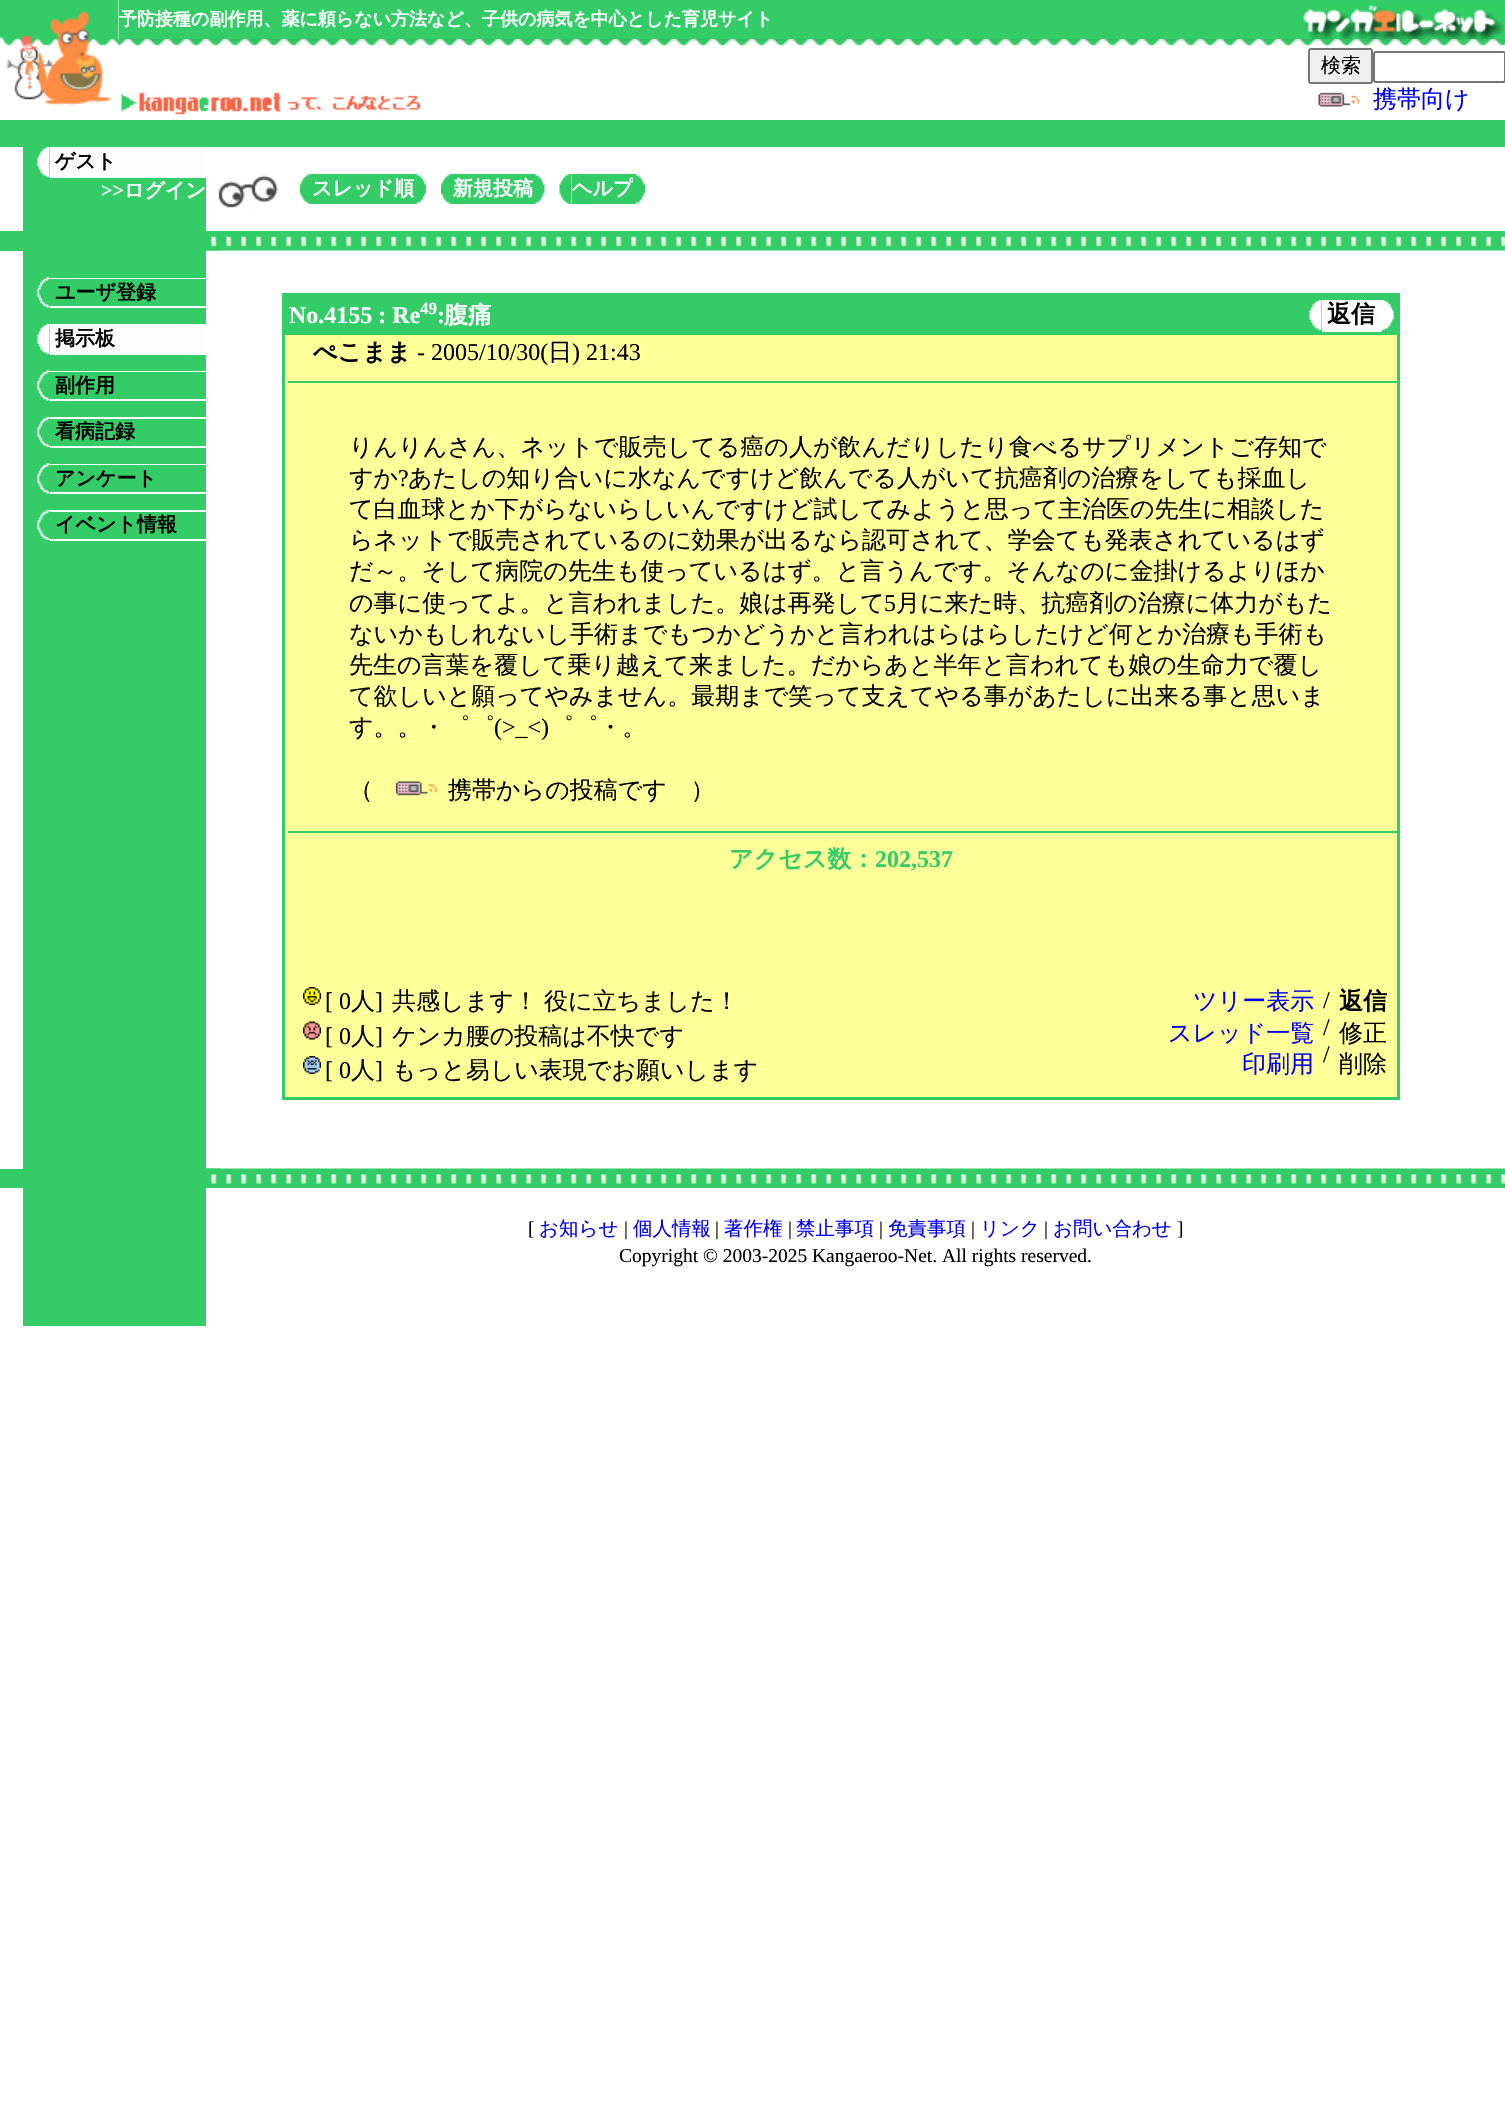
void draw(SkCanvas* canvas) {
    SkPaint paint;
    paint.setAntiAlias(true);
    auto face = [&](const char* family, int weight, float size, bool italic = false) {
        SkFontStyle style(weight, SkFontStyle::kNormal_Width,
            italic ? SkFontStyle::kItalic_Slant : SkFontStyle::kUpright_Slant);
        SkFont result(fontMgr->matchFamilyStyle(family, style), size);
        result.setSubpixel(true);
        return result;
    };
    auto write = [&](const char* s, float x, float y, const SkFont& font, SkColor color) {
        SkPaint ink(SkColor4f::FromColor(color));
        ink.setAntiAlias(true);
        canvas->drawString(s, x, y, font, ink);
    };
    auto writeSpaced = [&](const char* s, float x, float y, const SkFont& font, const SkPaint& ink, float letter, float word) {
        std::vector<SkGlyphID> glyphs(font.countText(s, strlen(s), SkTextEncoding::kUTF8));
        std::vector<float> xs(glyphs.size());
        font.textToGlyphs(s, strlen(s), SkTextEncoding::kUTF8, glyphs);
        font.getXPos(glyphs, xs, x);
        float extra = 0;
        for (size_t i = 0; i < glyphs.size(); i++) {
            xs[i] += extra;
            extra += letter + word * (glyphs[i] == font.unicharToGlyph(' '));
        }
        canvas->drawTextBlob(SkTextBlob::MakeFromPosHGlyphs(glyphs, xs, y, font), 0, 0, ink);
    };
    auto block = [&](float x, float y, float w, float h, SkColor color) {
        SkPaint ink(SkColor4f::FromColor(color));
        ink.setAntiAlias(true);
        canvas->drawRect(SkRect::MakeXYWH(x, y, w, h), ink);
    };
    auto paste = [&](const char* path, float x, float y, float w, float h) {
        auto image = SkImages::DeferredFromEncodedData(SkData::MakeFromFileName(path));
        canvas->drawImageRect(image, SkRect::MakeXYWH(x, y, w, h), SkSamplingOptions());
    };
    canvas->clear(SK_ColorWHITE);
    paste("pic3.png", 118, 39, 1387, 6);
    paste("pic1.png", 0, 0, 119, 106);
    block(119, 0, 1386, 39, SkColorSetRGB(51, 204, 102));
    auto kFont1 = face("WenQuanYi Zen Hei", 700, 18);
    write("予防接種の副作用、薬に頼らない方法など、子供の病気を中心とした育児サイト", 119, 25, kFont1, SkColorSetRGB(254, 254, 254));
    paste("pic2.png", 1303, 4, 201, 35);
    paste("pic4.png", 118, 39, 6, 6);
    paste("pic5.png", 121, 91, 302, 25);
    paint.setColor(SkColorSetRGB(239, 239, 239));
    canvas->drawRoundRect(SkRect::MakeXYWH(1309, 49, 63, 34), 2, 2, paint);
    paint.setStyle(SkPaint::kStroke_Style);
    paint.setStrokeWidth(2);
    paint.setColor(SkColorSetRGB(118, 118, 118));
    canvas->drawRoundRect(SkRect::MakeXYWH(1309, 49, 63, 34), 2, 2, paint);
    auto kFont2 = face("WenQuanYi Zen Hei", 500, 20);
    write("検索", 1321, 72, kFont2, SK_ColorBLACK);
    canvas->drawRoundRect(SkRect::MakeXYWH(1374, 52, 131, 30), 2, 2, paint);
    paste("pic6.png", 1318, 92, 42, 15);
    auto kFont3 = face("WenQuanYi Zen Hei", 500, 24);
    write("携帯向け", 1373, 107, kFont3, SkColorSetRGB(0, 0, 238));
    block(0, 120, 1505, 27, SkColorSetRGB(51, 204, 102));
    block(23, 147, 183, 84, SkColorSetRGB(51, 204, 102));
    paste("pic7.png", 37, 147, 13, 30);
    block(50, 147, 156, 31, SkColorSetRGB(254, 254, 254));
    auto kFont4 = face("WenQuanYi Zen Hei", 700, 20);
    write("ゲスト", 55, 168, kFont4, SK_ColorBLACK);
    auto kFont5 = face("Liberation Serif", 700, 20);
    write(">>", 101, 197, kFont5, SkColorSetRGB(254, 254, 254));
    write("ログイン", 124, 197, kFont4, SkColorSetRGB(254, 254, 254));
    paste("pic8.png", 215, 168, 70, 44);
    paste("pic9.png", 300, 174, 12, 30);
    block(312, 174, 102, 30, SkColorSetRGB(51, 204, 102));
    write("スレッド順", 312, 195, kFont4, SkColorSetRGB(254, 254, 254));
    paste("pic10.png", 414, 174, 12, 30);
    paste("pic9.png", 441, 174, 12, 30);
    block(453, 174, 80, 30, SkColorSetRGB(51, 204, 102));
    write("新規投稿", 453, 195, kFont4, SkColorSetRGB(254, 254, 254));
    paste("pic11.png", 533, 174, 12, 30);
    paste("pic12.png", 559, 174, 13, 30);
    block(572, 174, 61, 30, SkColorSetRGB(51, 204, 102));
    write("ヘルプ", 572, 195, kFont4, SkColorSetRGB(254, 254, 254));
    paste("pic13.png", 633, 174, 12, 30);
    block(0, 231, 206, 20, SkColorSetRGB(51, 204, 102));
    paste("pic14.png", 206, 231, 1299, 20);
    paste("pic15.png", 206, 236, 15, 15);
    block(23, 251, 183, 918, SkColorSetRGB(51, 204, 102));
    paste("pic16.png", 37, 277, 13, 31);
    block(50, 278, 156, 1, SkColorSetRGB(254, 254, 254));
    write("ユーザ登録", 55, 299, kFont4, SK_ColorBLACK);
    block(50, 306, 156, 2, SkColorSetRGB(254, 254, 254));
    paste("pic7.png", 37, 324, 13, 30);
    block(50, 324, 156, 31, SkColorSetRGB(254, 254, 254));
    write("掲示板", 55, 345, kFont4, SK_ColorBLACK);
    paste("pic16.png", 37, 370, 13, 31);
    block(50, 371, 156, 1, SkColorSetRGB(254, 254, 254));
    write("副作用", 55, 392, kFont4, SK_ColorBLACK);
    block(50, 399, 156, 2, SkColorSetRGB(254, 254, 254));
    paste("pic17.png", 37, 417, 13, 30);
    block(50, 417, 156, 2, SkColorSetRGB(254, 254, 254));
    write("看病記録", 55, 438, kFont4, SK_ColorBLACK);
    block(50, 446, 156, 2, SkColorSetRGB(254, 254, 254));
    paste("pic16.png", 37, 463, 13, 31);
    block(50, 464, 156, 1, SkColorSetRGB(254, 254, 254));
    write("アンケート", 55, 485, kFont4, SK_ColorBLACK);
    block(50, 492, 156, 2, SkColorSetRGB(254, 254, 254));
    paste("pic17.png", 37, 510, 13, 30);
    block(50, 510, 156, 2, SkColorSetRGB(254, 254, 254));
    write("イベント情報", 55, 531, kFont4, SK_ColorBLACK);
    block(50, 539, 156, 2, SkColorSetRGB(254, 254, 254));
    paint.setColor(SkColorSetRGB(51, 204, 102));
    canvas->drawRect(SkRect::MakeXYWH(283, 294, 1116, 805), paint);
    canvas->drawRect(SkRect::MakeXYWH(285, 295, 1112, 802), paint);
    block(286, 296, 1110, 39, SkColorSetRGB(51, 204, 102));
    auto kFont6 = face("Liberation Serif", 700, 24);
    write("No.4155 : Re", 289, 323, kFont6, SkColorSetRGB(254, 254, 254));
    auto kFont7 = face("Liberation Serif", 700, 17);
    write("49", 420, 314, kFont7, SkColorSetRGB(254, 254, 254));
    write(":", 437, 323, kFont6, SkColorSetRGB(254, 254, 254));
    auto kFont8 = face("WenQuanYi Zen Hei", 700, 24);
    write("腹痛", 444, 323, kFont8, SkColorSetRGB(254, 254, 254));
    paste("pic18.png", 1309, 300, 13, 30);
    block(1322, 300, 60, 32, SkColorSetRGB(254, 254, 254));
    write("返信", 1327, 322, kFont8, SK_ColorBLACK);
    paste("pic19.png", 1382, 300, 12, 30);
    block(285, 335, 1112, 762, SkColorSetRGB(255, 255, 153));
    write("ぺこまま", 313, 360, kFont8, SK_ColorBLACK);
    auto kFont9 = face("Liberation Serif", 400, 24);
    write("- 2005/10/30(", 417, 360, kFont9, SK_ColorBLACK);
    write("日", 548, 360, kFont3, SK_ColorBLACK);
    write(") 21:43", 572, 360, kFont9, SK_ColorBLACK);
    block(288, 381, 1109, 2, SkColorSetRGB(51, 204, 102));
    write("りんりんさん、ネットで販売してる癌の人が飲んだりしたり食べるサプリメントご存知で", 349, 455, kFont3, SK_ColorBLACK);
    write("すか", 349, 486, kFont3, SK_ColorBLACK);
    write("?", 398, 486, kFont9, SK_ColorBLACK);
    write("あたしの知り合いに水なんですけど飲んでる人がいて抗癌剤の治療をしても採血し", 408, 486, kFont3, SK_ColorBLACK);
    write("て白血球とか下がらないらしいんですけど試してみようと思って主治医の先生に相談した", 349, 517, kFont3, SK_ColorBLACK);
    write("らネットで販売されているのに効果が出るなら認可されて、学会ても発表されているはず", 349, 548, kFont3, SK_ColorBLACK);
    write("だ～。そして病院の先生も使っているはず。と言うんです。そんなのに金掛けるよりほか", 349, 579, kFont3, SK_ColorBLACK);
    write("の事に使ってよ。と言われました。娘は再発して", 349, 611, kFont3, SK_ColorBLACK);
    write("5", 884, 611, kFont9, SK_ColorBLACK);
    write("月に来た時、抗癌剤の治療に体力がもた", 896, 611, kFont3, SK_ColorBLACK);
    write("ないかもしれないし手術までもつかどうかと言われはらはらしたけど何とか治療も手術も", 349, 642, kFont3, SK_ColorBLACK);
    write("先生の言葉を覆して乗り越えて来ました。だからあと半年と言われても娘の生命力で覆し", 349, 673, kFont3, SK_ColorBLACK);
    write("て欲しいと願ってやみません。最期まで笑って支えてやる事があたしに出来る事と思いま", 349, 704, kFont3, SK_ColorBLACK);
    write("す。。・゜゜", 349, 735, kFont3, SK_ColorBLACK);
    write("(>_<)", 494, 735, kFont9, SK_ColorBLACK);
    write("゜゜・。", 549, 735, kFont3, SK_ColorBLACK);
    write("（", 349, 798, kFont3, SK_ColorBLACK);
    paste("pic20.png", 396, 781, 41, 15);
    write("携帯からの投稿です　）", 448, 798, kFont3, SK_ColorBLACK);
    block(288, 831, 1109, 2, SkColorSetRGB(51, 204, 102));
    write("アクセス数：", 729, 867, kFont8, SkColorSetRGB(51, 204, 102));
    write("202,537", 875, 867, kFont6, SkColorSetRGB(51, 204, 102));
    paste("pic21.png", 303, 987, 18, 18);
    write("[ 0", 325, 1009, kFont9, SK_ColorBLACK);
    write("人", 351, 1009, kFont3, SK_ColorBLACK);
    write("]", 375, 1009, kFont9, SK_ColorBLACK);
    paint.setStyle(SkPaint::kFill_Style);
    paint.setColor(SK_ColorBLACK);
    writeSpaced("共感します！ 役に立ちました！", 392, 1009, kFont3, paint, 0, -1);
    paste("pic22.png", 303, 1021, 18, 19);
    write("[ 0", 325, 1044, kFont9, SK_ColorBLACK);
    write("人", 351, 1044, kFont3, SK_ColorBLACK);
    write("]", 375, 1044, kFont9, SK_ColorBLACK);
    write("ケンカ腰の投稿は不快です", 392, 1044, kFont3, SK_ColorBLACK);
    paste("pic23.png", 303, 1056, 18, 18);
    write("[ 0", 325, 1078, kFont9, SK_ColorBLACK);
    write("人", 351, 1078, kFont3, SK_ColorBLACK);
    write("]", 375, 1078, kFont9, SK_ColorBLACK);
    write("もっと易しい表現でお願いします", 392, 1078, kFont3, SK_ColorBLACK);
    write("ツリー表示", 1193, 1009, kFont3, SkColorSetRGB(0, 0, 238));
    write("スレッド一覧", 1168, 1041, kFont3, SkColorSetRGB(0, 0, 238));
    write("印刷用", 1242, 1072, kFont3, SkColorSetRGB(0, 0, 238));
    write("/", 1323, 1008, kFont9, SK_ColorBLACK);
    write("/", 1323, 1035, kFont9, SK_ColorBLACK);
    write("/", 1323, 1062, kFont9, SK_ColorBLACK);
    write("返信", 1339, 1009, kFont8, SK_ColorBLACK);
    write("修正", 1339, 1041, kFont3, SK_ColorBLACK);
    write("削除", 1339, 1072, kFont3, SK_ColorBLACK);
    block(0, 1169, 206, 19, SkColorSetRGB(51, 204, 102));
    paste("pic24.png", 206, 1168, 1299, 20);
    paste("pic25.png", 206, 1168, 15, 15);
    block(23, 1188, 183, 138, SkColorSetRGB(51, 204, 102));
    auto kFont10 = face("Liberation Serif", 400, 19.5f);
    write("[", 528, 1235, kFont10, SK_ColorBLACK);
    auto kFont11 = face("WenQuanYi Zen Hei", 500, 19.5f);
    write("お知らせ", 539, 1235, kFont11, SkColorSetRGB(0, 0, 238));
    write("|", 624, 1235, kFont10, SK_ColorBLACK);
    write("個人情報", 633, 1235, kFont11, SkColorSetRGB(0, 0, 238));
    write("|", 715, 1235, kFont10, SK_ColorBLACK);
    write("著作権", 724, 1235, kFont11, SkColorSetRGB(0, 0, 238));
    write("|", 788, 1235, kFont10, SK_ColorBLACK);
    write("禁止事項", 796, 1235, kFont11, SkColorSetRGB(0, 0, 238));
    write("|", 879, 1235, kFont10, SK_ColorBLACK);
    write("免責事項", 888, 1235, kFont11, SkColorSetRGB(0, 0, 238));
    write("|", 971, 1235, kFont10, SK_ColorBLACK);
    write("リンク", 980, 1235, kFont11, SkColorSetRGB(0, 0, 238));
    write("|", 1044, 1235, kFont10, SK_ColorBLACK);
    write("お問い合わせ", 1053, 1235, kFont11, SkColorSetRGB(0, 0, 238));
    write("]", 1177, 1235, kFont10, SK_ColorBLACK);
    write("Copyright © 2003-2025 Kangaeroo-Net. All rights reserved.", 619, 1262, kFont10, SK_ColorBLACK);
}
